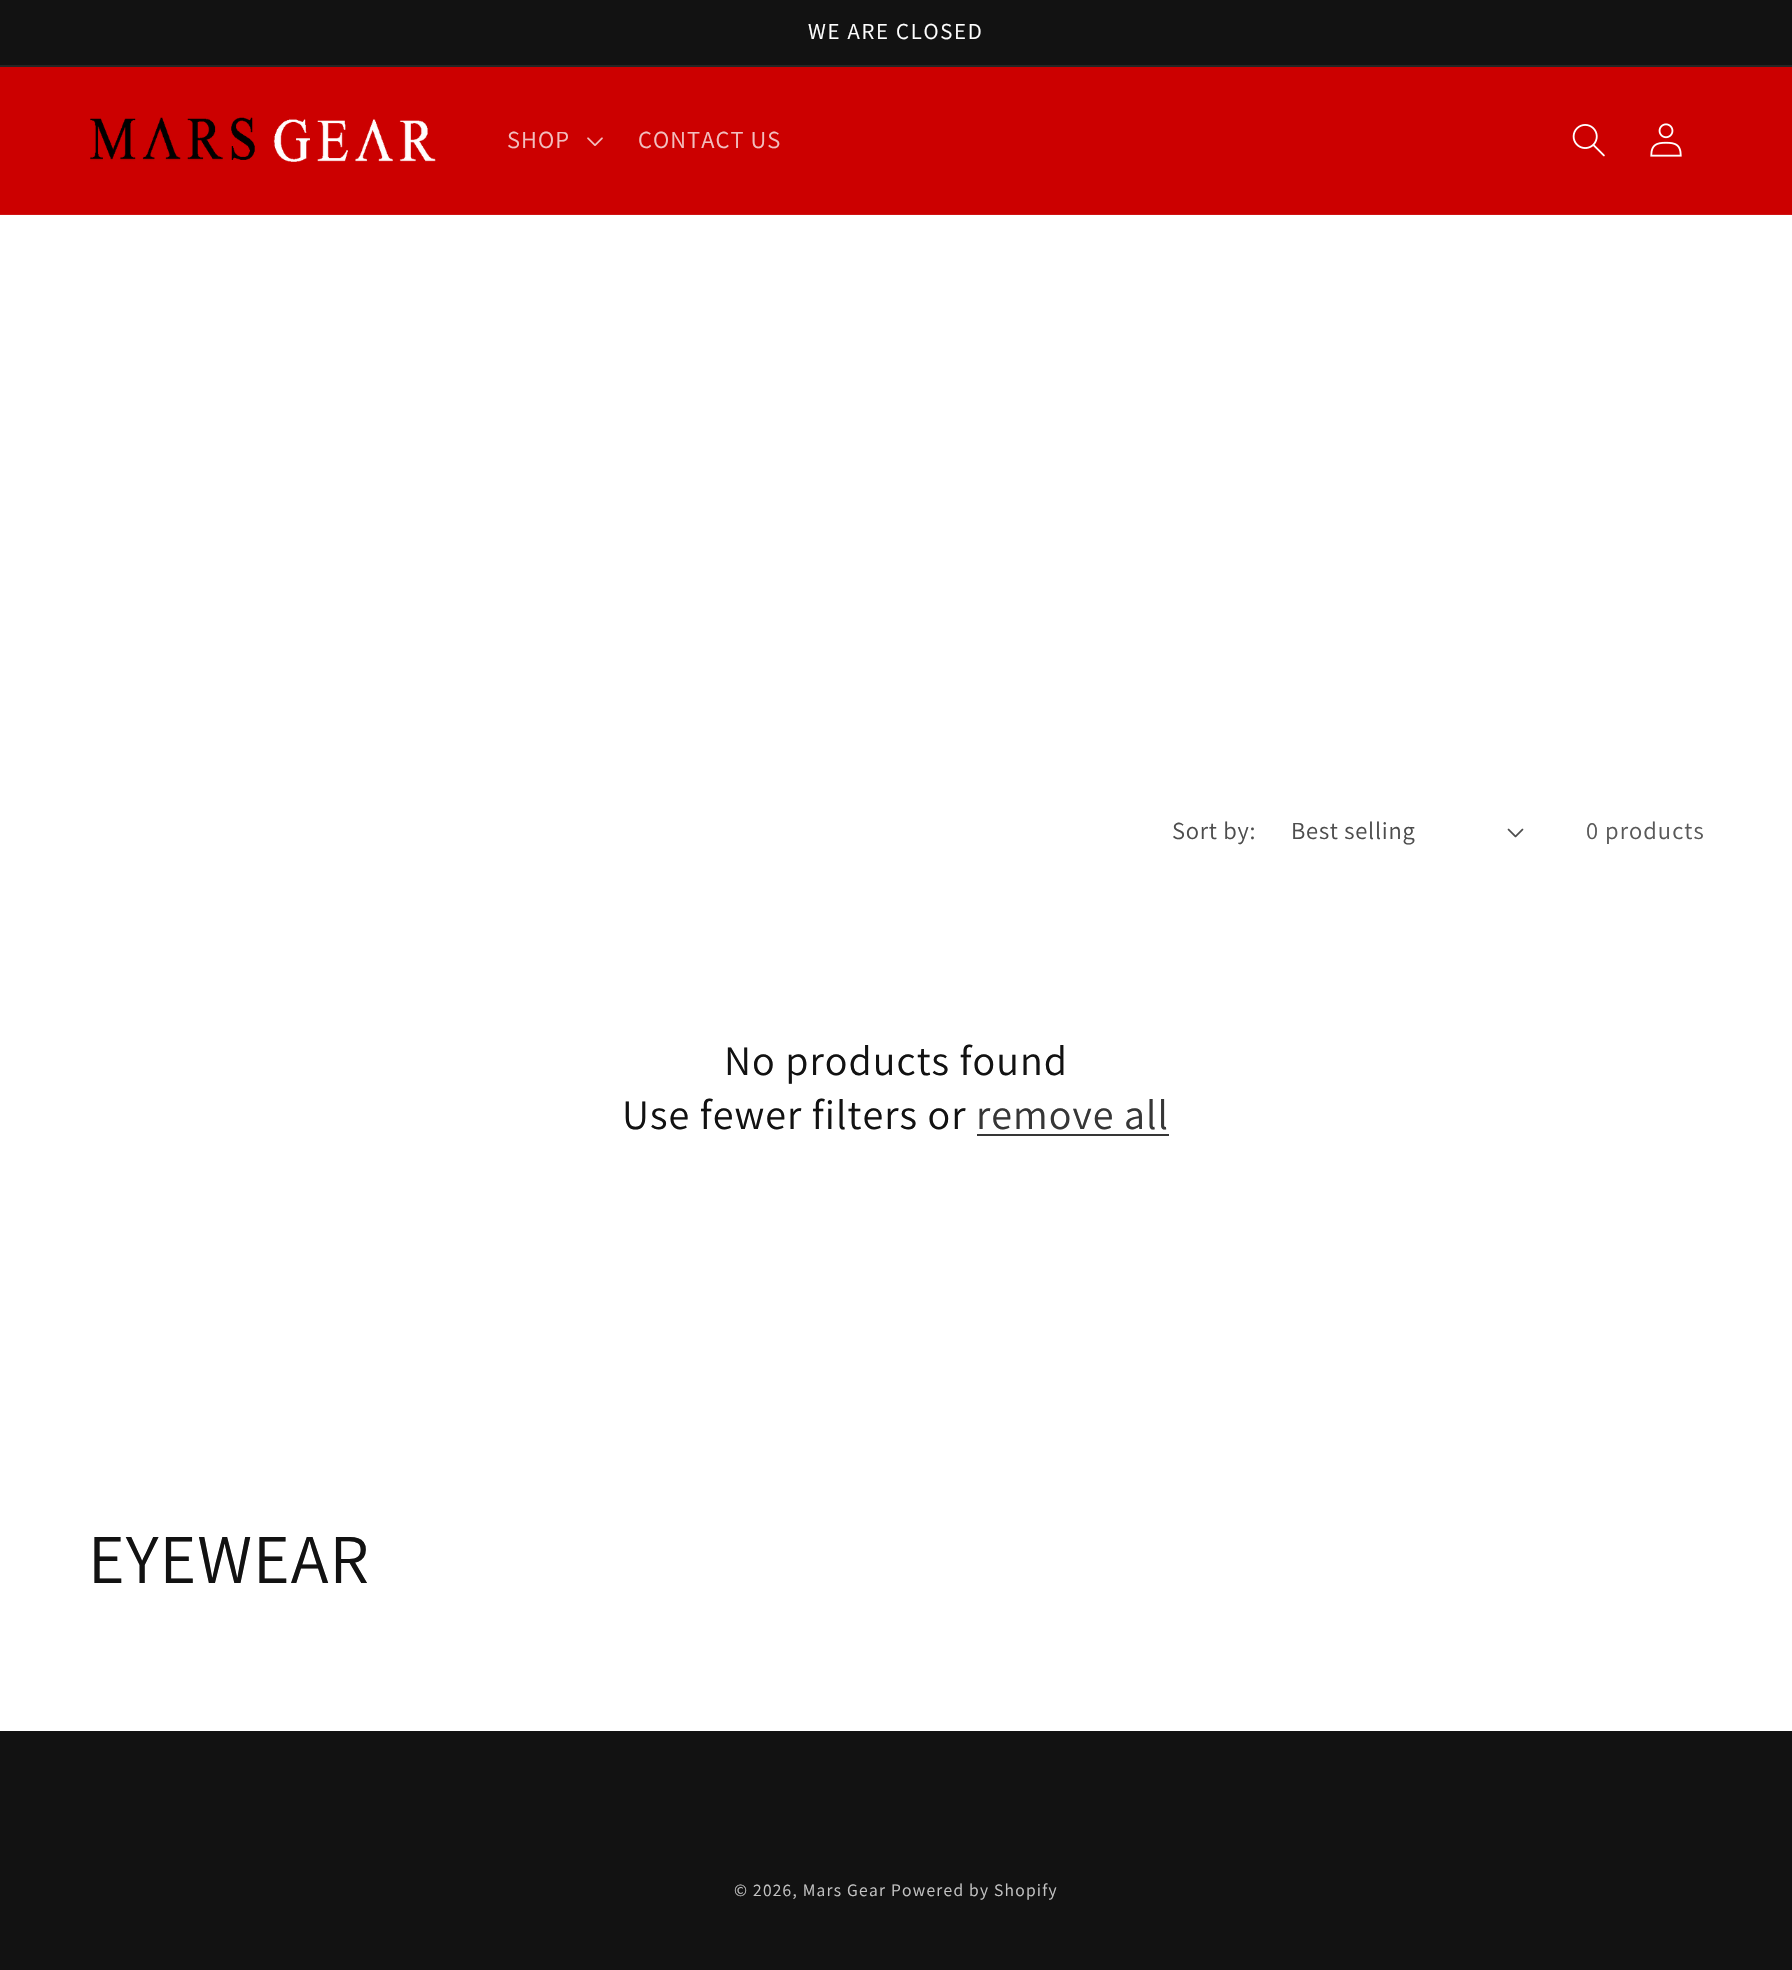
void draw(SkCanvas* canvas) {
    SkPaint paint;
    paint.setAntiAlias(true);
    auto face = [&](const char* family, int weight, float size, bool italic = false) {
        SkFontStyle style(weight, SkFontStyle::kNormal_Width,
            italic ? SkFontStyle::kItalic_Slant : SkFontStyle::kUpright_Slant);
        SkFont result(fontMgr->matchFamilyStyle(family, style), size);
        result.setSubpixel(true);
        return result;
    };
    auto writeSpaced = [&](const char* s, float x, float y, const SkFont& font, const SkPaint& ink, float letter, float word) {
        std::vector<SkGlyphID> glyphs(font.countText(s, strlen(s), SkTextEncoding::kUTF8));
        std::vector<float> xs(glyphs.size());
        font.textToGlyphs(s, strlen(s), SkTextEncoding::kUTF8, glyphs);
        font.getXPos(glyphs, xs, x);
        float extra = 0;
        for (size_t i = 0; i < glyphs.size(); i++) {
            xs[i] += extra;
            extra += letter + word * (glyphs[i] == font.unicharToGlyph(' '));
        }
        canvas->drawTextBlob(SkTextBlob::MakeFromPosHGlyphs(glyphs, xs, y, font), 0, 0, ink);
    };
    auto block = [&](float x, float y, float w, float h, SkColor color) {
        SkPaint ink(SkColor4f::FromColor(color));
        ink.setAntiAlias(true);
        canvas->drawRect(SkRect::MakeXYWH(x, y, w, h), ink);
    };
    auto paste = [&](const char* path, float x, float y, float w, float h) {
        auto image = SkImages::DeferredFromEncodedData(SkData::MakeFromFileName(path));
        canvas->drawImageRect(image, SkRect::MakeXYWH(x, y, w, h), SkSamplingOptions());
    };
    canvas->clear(SK_ColorWHITE);
    block(0, 0, 1792, 65, SkColorSetRGB(18, 18, 18));
    block(0, 65, 1792, 2, SkColorSetRGB(37, 37, 37));
    auto kFont1 = face("Assistant", 400, 22.75f);
    paint.setColor(SK_ColorWHITE);
    writeSpaced("WE ARE CLOSED", 808, 39, kFont1, paint, 1.75f, 0);
    block(0, 67, 1792, 147, SkColorSetRGB(204, 0, 0));
    block(0, 214, 1792, 1, SkColorSetRGB(208, 20, 20));
    paste("pic1.png", 90, 117, 346, 45);
    auto kFont2 = face("Assistant", 400, 24.5f);
    paint.setColor(SkColorSetRGB(242, 191, 191));
    writeSpaced("SHOP", 507, 148, kFont2, paint, 1.05f, 0);
    paste("pic2.png", 587, 137, 16, 9);
    writeSpaced("CONTACT US", 638, 148, kFont2, paint, 1.05f, 0);
    paste("pic3.png", 1572, 124, 33, 33);
    paste("pic4.png", 1650, 123, 32, 34);
    paint.setColor(SkColorSetRGB(77, 77, 77));
    writeSpaced("Sort by:", 1172, 839, kFont2, paint, 0.75f, 0);
    writeSpaced("Best selling", 1291, 839, kFont2, paint, 0.75f, 0);
    paste("pic5.png", 1507, 828, 17, 10);
    paint.setColor(SkColorSetRGB(89, 89, 89));
    writeSpaced("0 products", 1586, 839, kFont2, paint, 1.05f, 0);
    auto kFont3 = face("Assistant", 400, 42);
    paint.setColor(SkColorSetRGB(18, 18, 18));
    writeSpaced("No products found", 724, 1075, kFont3, paint, 1.05f, 0);
    writeSpaced("Use fewer filters or", 622, 1129, kFont3, paint, 1.05f, 0);
    paint.setColor(SkColorSetRGB(54, 54, 54));
    writeSpaced("remove all", 976, 1129, kFont3, paint, 1.05f, 0);
    block(977, 1134, 192, 2, SkColorSetRGB(54, 54, 54));
    auto kFont4 = face("Assistant", 400, 70);
    paint.setColor(SkColorSetRGB(18, 18, 18));
    writeSpaced("EYEWEAR", 88, 1583, kFont4, paint, 1.05f, 0);
    block(0, 1731, 1792, 239, SkColorSetRGB(18, 18, 18));
    auto kFont5 = face("Assistant", 400, 17.5f);
    paint.setColor(SkColorSetRGB(196, 196, 196));
    writeSpaced("© 2026, Mars Gear", 734, 1896, kFont5, paint, 1.25f, 0);
    writeSpaced("Powered by Shopify", 891, 1896, kFont5, paint, 1.25f, 0);
}
